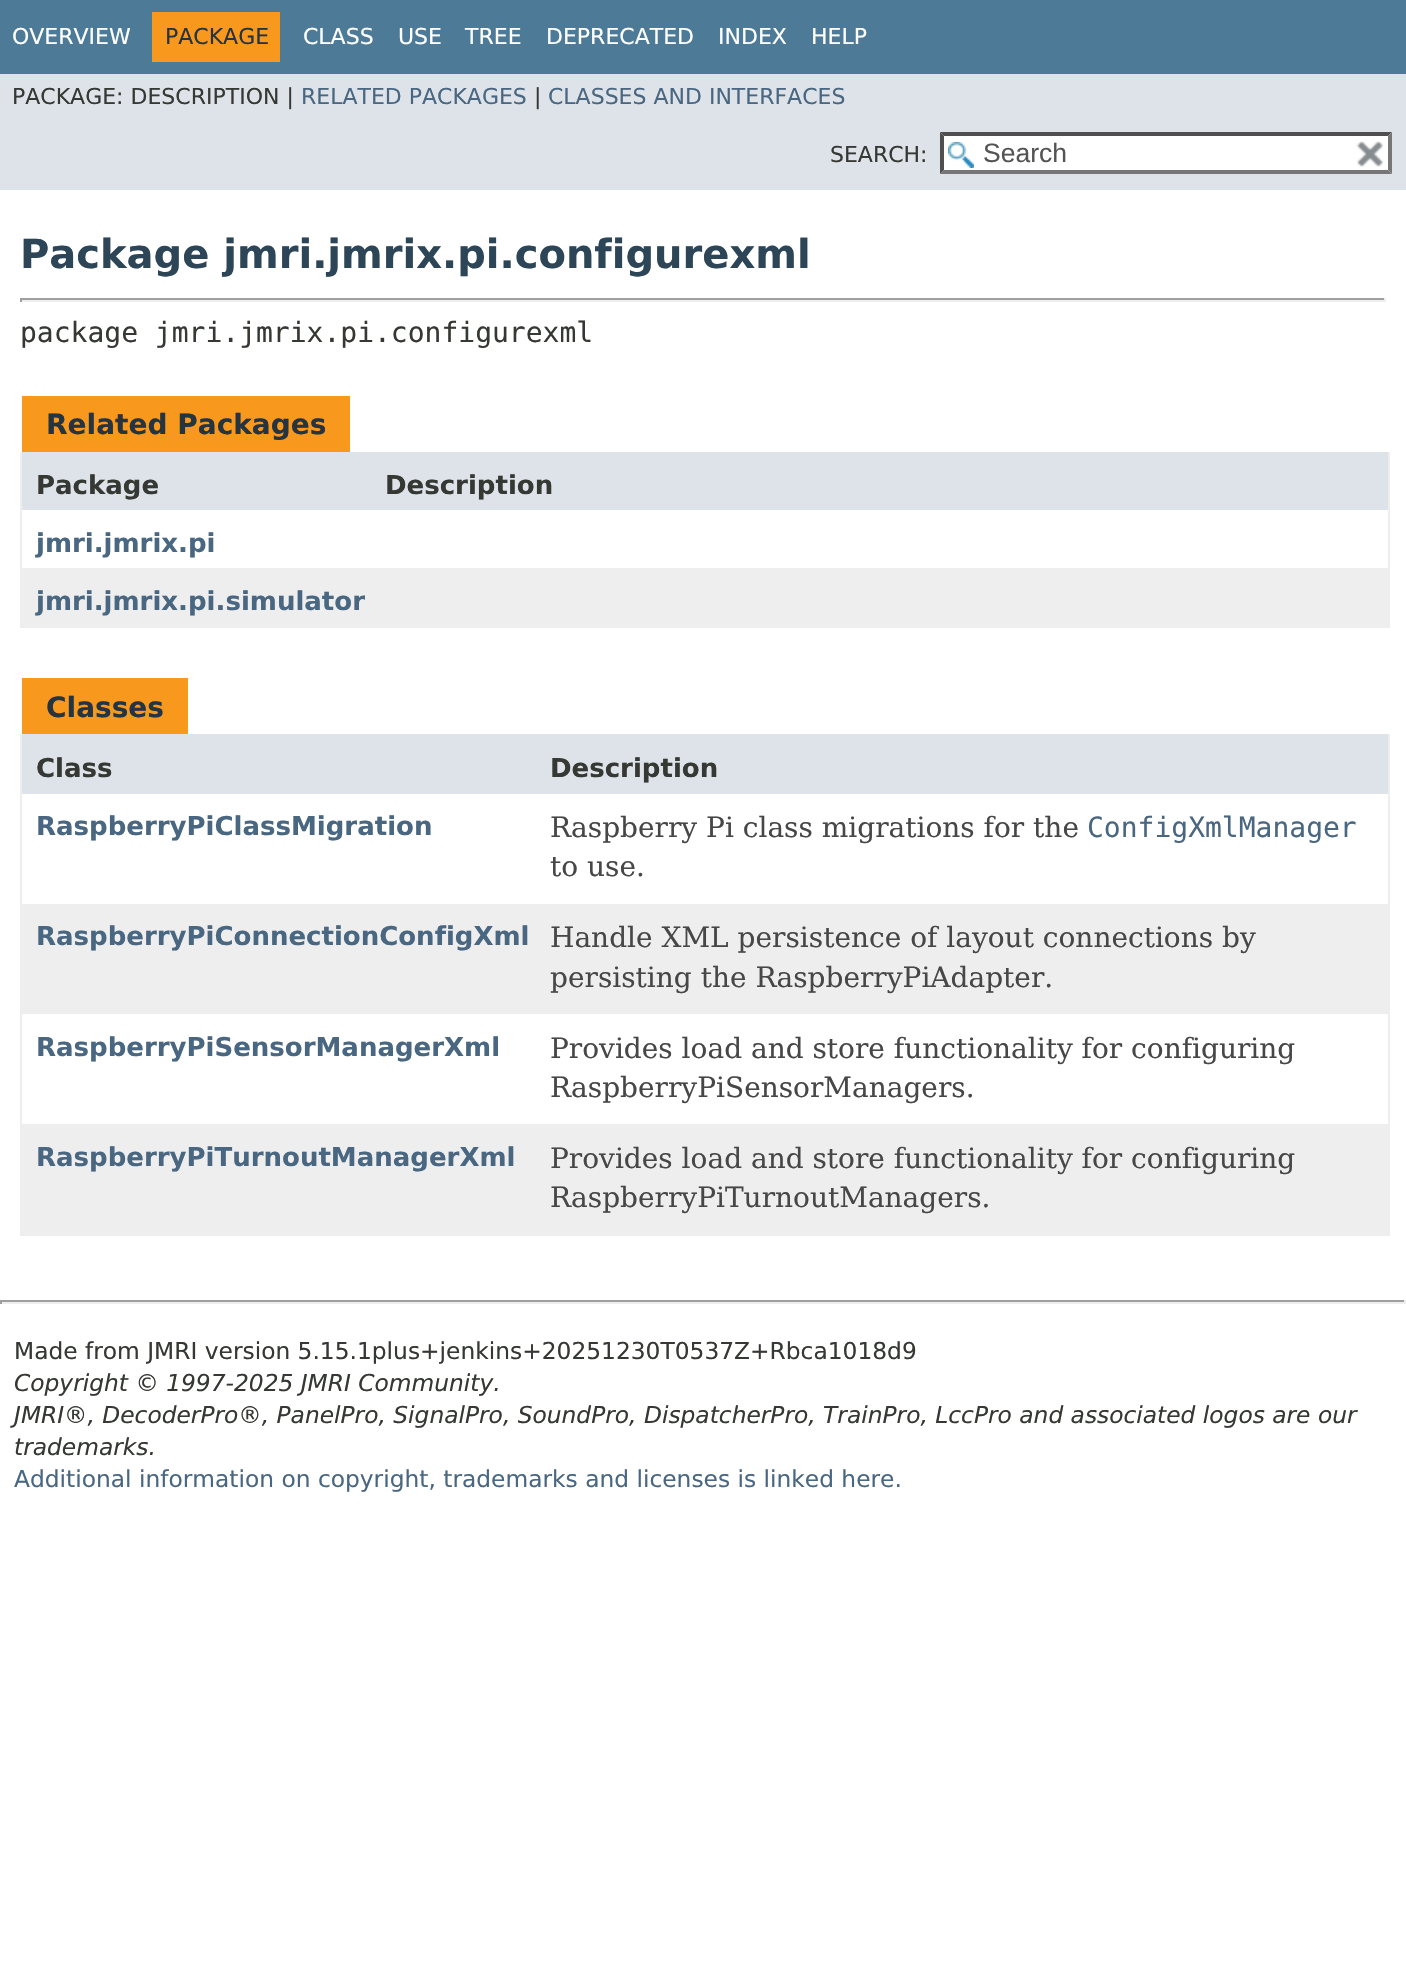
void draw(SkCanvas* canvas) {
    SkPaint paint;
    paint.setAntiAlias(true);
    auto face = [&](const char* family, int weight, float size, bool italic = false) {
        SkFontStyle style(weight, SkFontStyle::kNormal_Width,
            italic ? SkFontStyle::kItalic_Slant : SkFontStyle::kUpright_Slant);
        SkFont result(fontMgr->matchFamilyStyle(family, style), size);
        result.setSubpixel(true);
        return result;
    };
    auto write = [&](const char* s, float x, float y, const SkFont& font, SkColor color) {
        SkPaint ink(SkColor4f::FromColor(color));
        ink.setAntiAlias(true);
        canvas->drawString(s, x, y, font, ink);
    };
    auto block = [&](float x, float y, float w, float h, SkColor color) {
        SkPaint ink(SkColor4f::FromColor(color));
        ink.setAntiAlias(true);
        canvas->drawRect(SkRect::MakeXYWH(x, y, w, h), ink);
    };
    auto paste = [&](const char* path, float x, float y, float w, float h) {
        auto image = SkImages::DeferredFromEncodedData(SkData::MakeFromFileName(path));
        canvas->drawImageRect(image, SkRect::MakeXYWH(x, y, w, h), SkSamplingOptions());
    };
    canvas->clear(SK_ColorWHITE);
    block(0, 0, 1406, 74, SkColorSetRGB(77, 122, 151));
    auto kFont1 = face("DejaVu Sans", 400, 22);
    write("OVERVIEW", 12, 44, kFont1, SK_ColorWHITE);
    block(152, 12, 128, 50, SkColorSetRGB(248, 152, 29));
    write("PACKAGE", 165, 44, kFont1, SkColorSetRGB(37, 52, 65));
    write("CLASS", 303, 44, kFont1, SK_ColorWHITE);
    write("USE", 398, 44, kFont1, SK_ColorWHITE);
    write("TREE", 465, 44, kFont1, SK_ColorWHITE);
    write("DEPRECATED", 546, 44, kFont1, SK_ColorWHITE);
    write("INDEX", 718, 44, kFont1, SK_ColorWHITE);
    write("HELP", 811, 44, kFont1, SK_ColorWHITE);
    block(0, 74, 1406, 116, SkColorSetRGB(222, 227, 233));
    write("PACKAGE: DESCRIPTION |", 12, 104, kFont1, SkColorSetRGB(53, 56, 51));
    write("RELATED PACKAGES", 301, 104, kFont1, SkColorSetRGB(74, 103, 130));
    write("|", 534, 104, kFont1, SkColorSetRGB(53, 56, 51));
    write("CLASSES AND INTERFACES", 548, 104, kFont1, SkColorSetRGB(74, 103, 130));
    write("SEARCH:", 830, 162, kFont1, SkColorSetRGB(53, 56, 51));
    block(940, 132, 452, 42, SK_ColorWHITE);
    paste("pic1.png", 948, 142, 26, 26);
    paint.setColor(SkColorSetRGB(79, 79, 79));
    canvas->drawPath(SkPathBuilder().moveTo(940, 132).lineTo(1392, 132).lineTo(1388, 136).lineTo(944, 136).close().detach(), paint);
    paint.setColor(SkColorSetRGB(118, 118, 118));
    canvas->drawPath(SkPathBuilder().moveTo(1392, 132).lineTo(1392, 174).lineTo(1388, 170).lineTo(1388, 136).close().detach(), paint);
    canvas->drawPath(SkPathBuilder().moveTo(1392, 174).lineTo(940, 174).lineTo(944, 170).lineTo(1388, 170).close().detach(), paint);
    paint.setColor(SkColorSetRGB(79, 79, 79));
    canvas->drawPath(SkPathBuilder().moveTo(940, 174).lineTo(940, 132).lineTo(944, 136).lineTo(944, 170).close().detach(), paint);
    auto kFont2 = face("Liberation Sans", 400, 26.5f);
    write("Search", 983, 162, kFont2, SkColorSetRGB(84, 84, 84));
    paste("pic2.png", 1356, 141, 27, 26);
    auto kFont3 = face("DejaVu Sans", 700, 40);
    write("Package jmri.jmrix.pi.configurexml", 20, 268, kFont3, SkColorSetRGB(44, 69, 87));
    block(20, 298, 1366, 2, SkColorSetRGB(159, 159, 159));
    block(1384, 298, 2, 4, SkColorSetRGB(238, 238, 238));
    block(20, 300, 1366, 2, SkColorSetRGB(238, 238, 238));
    block(20, 298, 2, 4, SkColorSetRGB(159, 159, 159));
    auto kFont4 = face("DejaVu Sans Mono", 400, 28);
    write("package jmri.jmrix.pi.configurexml", 20, 342, kFont4, SkColorSetRGB(53, 56, 51));
    block(22, 396, 328, 56, SkColorSetRGB(248, 152, 29));
    auto kFont5 = face("DejaVu Sans", 700, 28);
    write("Related Packages", 46, 434, kFont5, SkColorSetRGB(37, 52, 65));
    block(1388, 452, 2, 176, SkColorSetRGB(238, 238, 238));
    block(20, 626, 1370, 2, SkColorSetRGB(238, 238, 238));
    block(20, 452, 2, 176, SkColorSetRGB(238, 238, 238));
    block(22, 452, 1366, 58, SkColorSetRGB(222, 227, 233));
    auto kFont6 = face("DejaVu Sans", 700, 26);
    write("Package", 36, 494, kFont6, SkColorSetRGB(53, 56, 51));
    write("Description", 385, 494, kFont6, SkColorSetRGB(53, 56, 51));
    write("jmri.jmrix.pi", 36, 552, kFont6, SkColorSetRGB(74, 103, 130));
    block(22, 568, 1366, 58, SkColorSetRGB(238, 238, 239));
    write("jmri.jmrix.pi.simulator", 36, 610, kFont6, SkColorSetRGB(74, 103, 130));
    block(22, 678, 166, 56, SkColorSetRGB(248, 152, 29));
    write("Classes", 46, 717, kFont5, SkColorSetRGB(37, 52, 65));
    block(1388, 734, 2, 502, SkColorSetRGB(238, 238, 238));
    block(20, 1234, 1370, 2, SkColorSetRGB(238, 238, 238));
    block(20, 734, 2, 502, SkColorSetRGB(238, 238, 238));
    block(22, 734, 1366, 60, SkColorSetRGB(222, 227, 233));
    write("Class", 36, 777, kFont6, SkColorSetRGB(53, 56, 51));
    write("Description", 550, 777, kFont6, SkColorSetRGB(53, 56, 51));
    write("RaspberryPiClassMigration", 36, 835, kFont6, SkColorSetRGB(74, 103, 130));
    auto kFont7 = face("DejaVu Serif", 400, 28);
    write("Raspberry Pi class migrations for the", 550, 837, kFont7, SkColorSetRGB(71, 71, 71));
    write("ConfigXmlManager", 1087, 837, kFont4, SkColorSetRGB(74, 103, 130));
    write("to use.", 550, 876, kFont7, SkColorSetRGB(71, 71, 71));
    block(22, 904, 1366, 110, SkColorSetRGB(238, 238, 239));
    write("RaspberryPiConnectionConfigXml", 36, 945, kFont6, SkColorSetRGB(74, 103, 130));
    write("Handle XML persistence of layout connections by", 550, 947, kFont7, SkColorSetRGB(71, 71, 71));
    write("persisting the RaspberryPiAdapter.", 550, 987, kFont7, SkColorSetRGB(71, 71, 71));
    write("RaspberryPiSensorManagerXml", 36, 1056, kFont6, SkColorSetRGB(74, 103, 130));
    write("Provides load and store functionality for configuring", 550, 1058, kFont7, SkColorSetRGB(71, 71, 71));
    write("RaspberryPiSensorManagers.", 550, 1097, kFont7, SkColorSetRGB(71, 71, 71));
    block(22, 1124, 1366, 110, SkColorSetRGB(238, 238, 239));
    write("RaspberryPiTurnoutManagerXml", 36, 1166, kFont6, SkColorSetRGB(74, 103, 130));
    write("Provides load and store functionality for configuring", 550, 1168, kFont7, SkColorSetRGB(71, 71, 71));
    write("RaspberryPiTurnoutManagers.", 550, 1207, kFont7, SkColorSetRGB(71, 71, 71));
    block(0, 1300, 1406, 2, SkColorSetRGB(159, 159, 159));
    block(1404, 1300, 2, 4, SkColorSetRGB(238, 238, 238));
    block(0, 1302, 1406, 2, SkColorSetRGB(238, 238, 238));
    block(0, 1300, 2, 4, SkColorSetRGB(159, 159, 159));
    auto kFont8 = face("DejaVu Sans", 400, 23.33f);
    write("Made from JMRI version 5.15.1plus+jenkins+20251230T0537Z+Rbca1018d9", 14, 1359, kFont8, SkColorSetRGB(53, 56, 51));
    auto kFont9 = face("DejaVu Sans", 400, 23.33f, true);
    write("Copyright © 1997-2025 JMRI Community.", 14, 1391, kFont9, SkColorSetRGB(53, 56, 51));
    write("JMRI®, DecoderPro®, PanelPro, SignalPro, SoundPro, DispatcherPro, TrainPro, LccPro and associated logos are our", 14, 1423, kFont9, SkColorSetRGB(53, 56, 51));
    write("trademarks.", 14, 1455, kFont9, SkColorSetRGB(53, 56, 51));
    write("Additional information on copyright, trademarks and licenses is linked here.", 14, 1487, kFont8, SkColorSetRGB(74, 103, 130));
}
